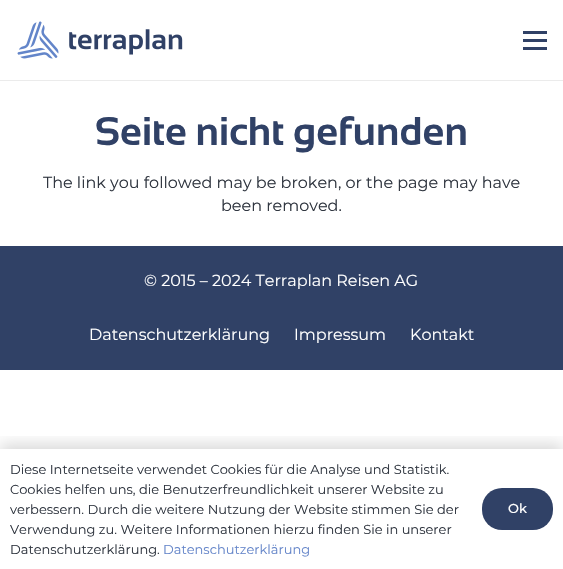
void draw(SkCanvas* canvas) {
    SkPaint paint;
    paint.setAntiAlias(true);
    auto face = [&](const char* family, int weight, float size, bool italic = false) {
        SkFontStyle style(weight, SkFontStyle::kNormal_Width,
            italic ? SkFontStyle::kItalic_Slant : SkFontStyle::kUpright_Slant);
        SkFont result(fontMgr->matchFamilyStyle(family, style), size);
        result.setSubpixel(true);
        return result;
    };
    auto write = [&](const char* s, float x, float y, const SkFont& font, SkColor color) {
        SkPaint ink(SkColor4f::FromColor(color));
        ink.setAntiAlias(true);
        canvas->drawString(s, x, y, font, ink);
    };
    auto block = [&](float x, float y, float w, float h, SkColor color) {
        SkPaint ink(SkColor4f::FromColor(color));
        ink.setAntiAlias(true);
        canvas->drawRect(SkRect::MakeXYWH(x, y, w, h), ink);
    };
    auto card = [&](float x, float y, float w, float h, float radius, SkColor color) {
        SkPaint ink(SkColor4f::FromColor(color));
        ink.setAntiAlias(true);
        canvas->drawRoundRect(SkRect::MakeXYWH(x, y, w, h), radius, radius, ink);
    };
    auto paste = [&](const char* path, float x, float y, float w, float h) {
        auto image = SkImages::DeferredFromEncodedData(SkData::MakeFromFileName(path));
        canvas->drawImageRect(image, SkRect::MakeXYWH(x, y, w, h), SkSamplingOptions());
    };
    canvas->clear(SK_ColorWHITE);
    block(0, 80, 563, 1, SkColorSetRGB(235, 235, 235));
    paste("pic1.png", 17, 21, 166, 38);
    block(523, 39, 24, 3, SkColorSetRGB(48, 65, 102));
    block(523, 31, 24, 3, SkColorSetRGB(48, 65, 102));
    block(523, 47, 24, 3, SkColorSetRGB(48, 65, 102));
    auto kFont1 = face("Sansation", 700, 40);
    write("Seite nicht gefunden", 95, 145, kFont1, SkColorSetRGB(48, 65, 102));
    auto kFont2 = face("Montserrat", 400, 16);
    write("The link you followed may be broken, or the page may have", 43, 188, kFont2, SkColorSetRGB(48, 54, 64));
    write("been removed.", 221, 211, kFont2, SkColorSetRGB(48, 54, 64));
    block(0, 246, 563, 124, SkColorSetRGB(48, 65, 102));
    write("© 2015 – 2024 Terraplan Reisen AG", 144, 286, kFont2, SK_ColorWHITE);
    write("Datenschutzerklärung", 89, 340, kFont2, SK_ColorWHITE);
    write("Impressum", 294, 340, kFont2, SK_ColorWHITE);
    write("Kontakt", 410, 340, kFont2, SK_ColorWHITE);
    canvas->save();
    canvas->clipRect(SkRect::MakeXYWH(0, 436, 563, 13));
    paint.setColor(SkColorSetARGB(38, 0, 0, 0));
    paint.setMaskFilter(SkMaskFilter::MakeBlur(kNormal_SkBlurStyle, 7.5f));
    canvas->drawRect(SkRect::MakeXYWH(0, 444, 563, 120), paint);
    paint.setMaskFilter(nullptr);
    canvas->restore();
    auto kFont3 = face("Montserrat", 400, 13);
    write("Diese Internetseite verwendet Cookies für die Analyse und Statistik.", 10, 474, kFont3, SkColorSetRGB(48, 54, 64));
    write("Cookies helfen uns, die Benutzerfreundlichkeit unserer Website zu", 10, 494, kFont3, SkColorSetRGB(48, 54, 64));
    write("verbessern. Durch die weitere Nutzung der Website stimmen Sie der", 10, 514, kFont3, SkColorSetRGB(48, 54, 64));
    write("Verwendung zu. Weitere Informationen hierzu finden Sie in unserer", 10, 534, kFont3, SkColorSetRGB(48, 54, 64));
    write("Datenschutzerklärung.", 10, 554, kFont3, SkColorSetRGB(48, 54, 64));
    write("Datenschutzerklärung", 163, 554, kFont3, SkColorSetRGB(100, 133, 201));
    card(482, 488, 71, 42, 20, SkColorSetRGB(48, 65, 102));
    auto kFont4 = face("Montserrat", 500, 13);
    write("Ok", 508, 513, kFont4, SK_ColorWHITE);
}
